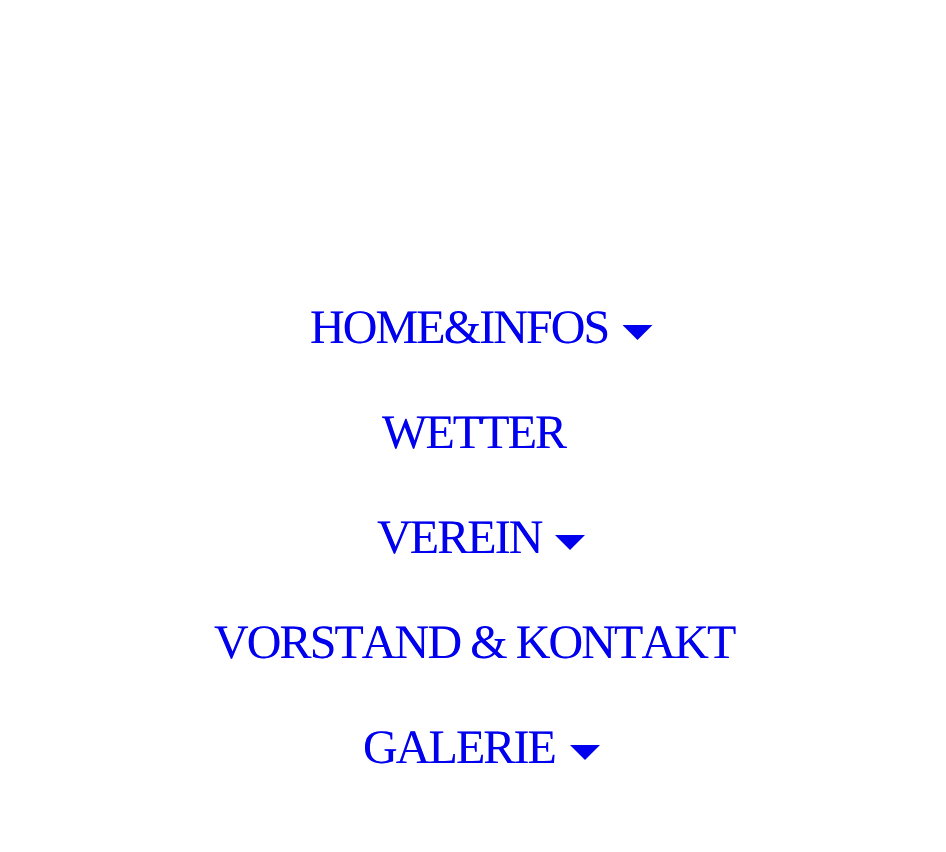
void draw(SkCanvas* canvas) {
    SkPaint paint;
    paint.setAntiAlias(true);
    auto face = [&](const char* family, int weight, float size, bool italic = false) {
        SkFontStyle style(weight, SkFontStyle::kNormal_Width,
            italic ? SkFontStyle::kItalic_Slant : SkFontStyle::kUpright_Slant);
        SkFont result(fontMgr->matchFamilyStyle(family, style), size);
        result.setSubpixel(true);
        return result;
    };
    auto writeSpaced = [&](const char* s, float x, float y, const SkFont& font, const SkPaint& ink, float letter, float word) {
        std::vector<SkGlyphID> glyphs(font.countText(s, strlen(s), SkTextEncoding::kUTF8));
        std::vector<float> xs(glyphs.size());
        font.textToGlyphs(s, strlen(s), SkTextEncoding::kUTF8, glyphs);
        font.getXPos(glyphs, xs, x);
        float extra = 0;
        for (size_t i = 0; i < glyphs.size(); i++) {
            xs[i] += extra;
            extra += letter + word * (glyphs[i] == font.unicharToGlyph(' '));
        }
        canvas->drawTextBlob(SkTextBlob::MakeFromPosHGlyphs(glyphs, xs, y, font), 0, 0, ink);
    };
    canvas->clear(SK_ColorWHITE);
    auto kFont1 = face("Liberation Serif", 400, 48);
    paint.setColor(SkColorSetRGB(0, 0, 238));
    writeSpaced("HOME&INFOS", 310, 343, kFont1, paint, -1.9f, 0);
    canvas->drawPath(SkPathBuilder().moveTo(622.5f, 325).lineTo(652.5f, 325).lineTo(637.5f, 340).close().detach(), paint);
    writeSpaced("WETTER", 382, 448, kFont1, paint, -1.9f, 0);
    writeSpaced("VEREIN", 377, 553, kFont1, paint, -1.9f, 0);
    canvas->drawPath(SkPathBuilder().moveTo(555, 535).lineTo(585, 535).lineTo(570, 550).close().detach(), paint);
    writeSpaced("VORSTAND & KONTAKT", 214, 658, kFont1, paint, -1.9f, 0);
    writeSpaced("GALERIE", 363, 763, kFont1, paint, -1.9f, 0);
    canvas->drawPath(SkPathBuilder().moveTo(570, 745).lineTo(600, 745).lineTo(585, 760).close().detach(), paint);
}
